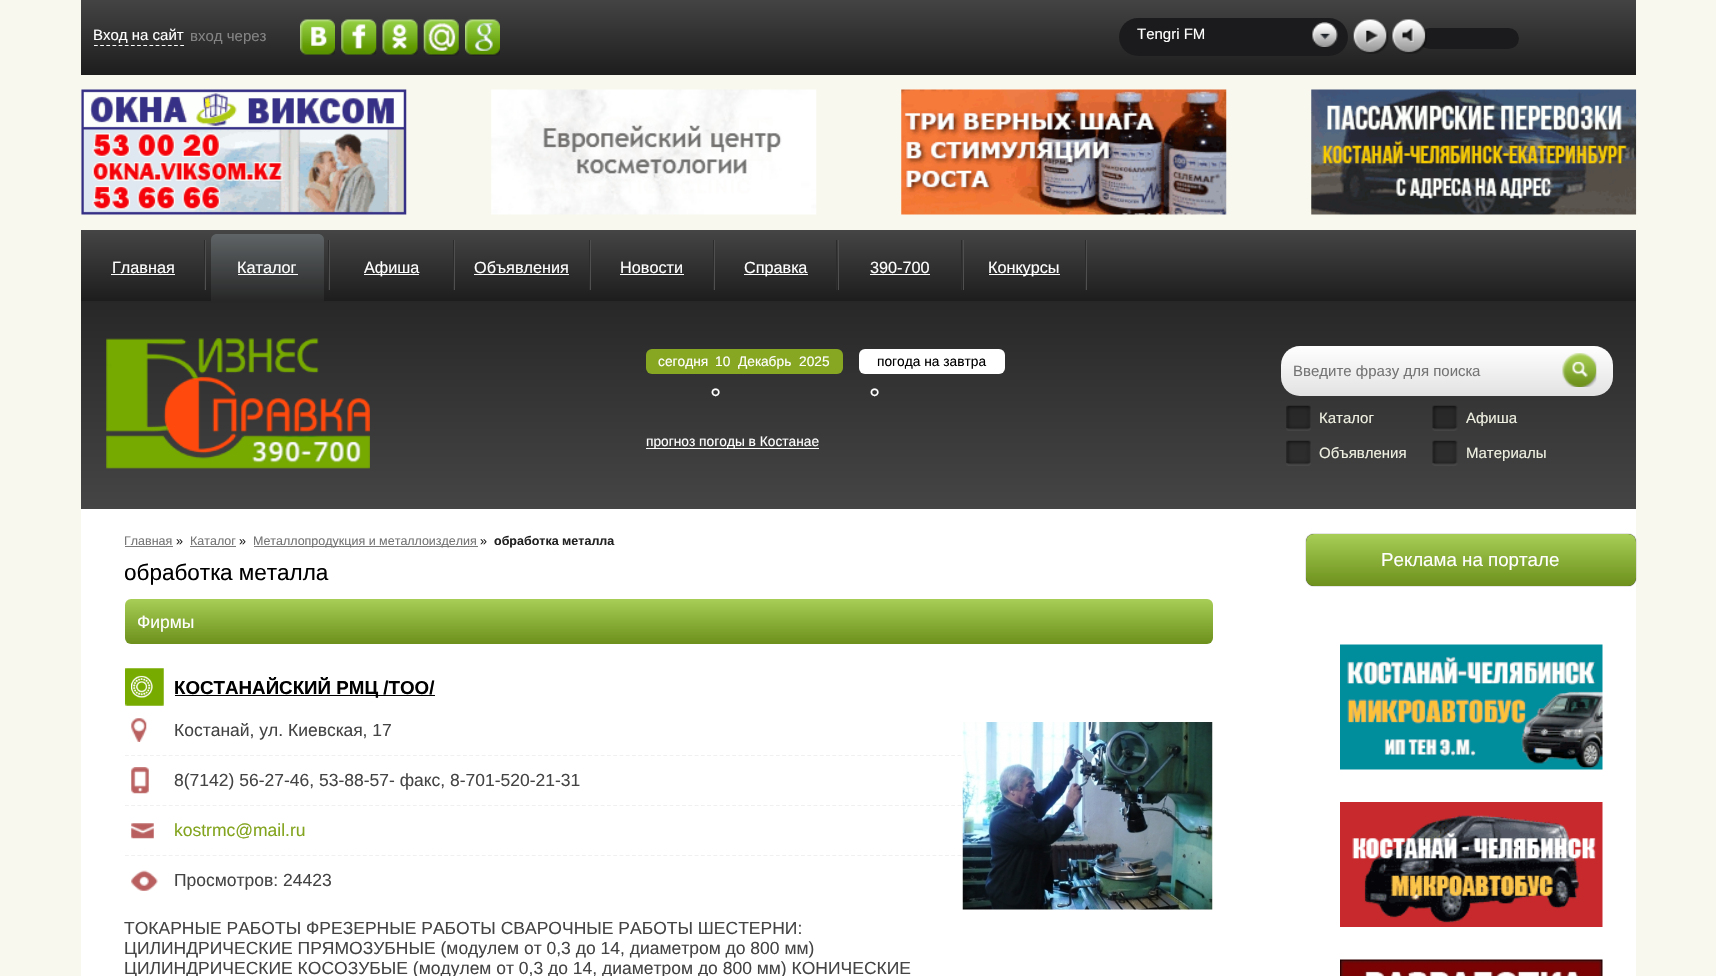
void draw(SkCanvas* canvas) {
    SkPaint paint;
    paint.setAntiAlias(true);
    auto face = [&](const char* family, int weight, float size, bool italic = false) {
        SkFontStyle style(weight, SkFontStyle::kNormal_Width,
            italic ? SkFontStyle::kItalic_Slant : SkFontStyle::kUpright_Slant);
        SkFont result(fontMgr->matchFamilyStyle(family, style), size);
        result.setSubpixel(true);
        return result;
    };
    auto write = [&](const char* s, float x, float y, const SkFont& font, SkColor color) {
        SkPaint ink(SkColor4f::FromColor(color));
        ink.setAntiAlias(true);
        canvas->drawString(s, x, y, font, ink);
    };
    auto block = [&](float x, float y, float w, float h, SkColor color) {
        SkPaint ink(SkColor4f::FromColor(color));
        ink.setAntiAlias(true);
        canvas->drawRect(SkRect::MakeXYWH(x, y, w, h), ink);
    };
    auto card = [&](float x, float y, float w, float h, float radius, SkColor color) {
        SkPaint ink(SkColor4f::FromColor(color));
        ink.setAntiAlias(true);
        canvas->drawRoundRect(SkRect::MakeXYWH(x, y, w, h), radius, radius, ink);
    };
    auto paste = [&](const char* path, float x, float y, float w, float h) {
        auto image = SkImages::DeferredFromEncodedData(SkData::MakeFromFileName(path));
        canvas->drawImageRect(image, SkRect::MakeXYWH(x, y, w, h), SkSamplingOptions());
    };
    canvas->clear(SkColorSetRGB(248, 248, 239));
    {
        const SkColor colors[] = {SkColorSetRGB(69, 69, 69), SkColorSetRGB(29, 29, 29)};
        const float stops[] = {0, 1};
        const SkPoint ends[] = {{859, -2.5f}, {859, 75}};
        paint.setShader(SkGradientShader::MakeLinear(ends, colors, stops, 2, SkTileMode::kClamp));
        paint.setAlpha(255);
    }
    canvas->drawRect(SkRect::MakeXYWH(81, 0, 1555, 75), paint);
    paint.setStyle(SkPaint::kStroke_Style);
    paint.setStrokeWidth(1.2f);
    paint.setShader(nullptr);
    paint.setColor(SK_ColorWHITE);
    paint.setPathEffect(SkDashPathEffect::Make({{3.75f, 2.41f}}, 0));
    canvas->drawPath(SkPathBuilder().moveTo(94, 45.5f).lineTo(184, 45.5f).detach(), paint);
    paint.setPathEffect(nullptr);
    auto kFont1 = face("Liberation Sans", 400, 15);
    write("Вход на сайт", 93, 40, kFont1, SK_ColorWHITE);
    write("вход через", 190, 41, kFont1, SkColorSetRGB(131, 131, 131));
    paste("pic1.png", 300, 19, 35, 36);
    paste("pic2.png", 341, 19, 36, 36);
    paste("pic3.png", 382, 19, 36, 36);
    paste("pic4.png", 423, 19, 36, 37);
    paste("pic5.png", 465, 19, 35, 37);
    card(1119, 18, 229, 38, 19, SkColorSetRGB(27, 27, 29));
    write("Tengri FM", 1137, 39, kFont1, SK_ColorWHITE);
    paste("pic6.png", 1312, 22, 26, 25);
    paste("pic7.png", 1353, 19, 36, 35);
    card(1419, 28, 100, 21, 10.5f, SkColorSetRGB(27, 27, 29));
    paste("pic8.png", 1392, 19, 35, 35);
    paste("pic9.png", 81, 89, 326, 126);
    paste("pic10.png", 491, 89, 326, 126);
    paste("pic11.png", 901, 89, 326, 126);
    paste("pic12.png", 1311, 89, 326, 126);
    paint.setStyle(SkPaint::kFill_Style);
    {
        const SkColor colors[] = {SkColorSetRGB(29, 29, 29), SkColorSetRGB(69, 69, 69)};
        const float stops[] = {0, 1};
        const SkPoint ends[] = {{859, 230}, {859, 509}};
        paint.setShader(SkGradientShader::MakeLinear(ends, colors, stops, 2, SkTileMode::kClamp));
        paint.setAlpha(255);
    }
    canvas->drawRect(SkRect::MakeXYWH(81, 301, 1555, 208), paint);
    {
        const SkColor colors[] = {SkColorSetRGB(69, 69, 69), SkColorSetRGB(29, 29, 29)};
        const float stops[] = {0, 1};
        const SkPoint ends[] = {{859, 230}, {859, 301}};
        paint.setShader(SkGradientShader::MakeLinear(ends, colors, stops, 2, SkTileMode::kClamp));
        paint.setAlpha(255);
    }
    canvas->drawRect(SkRect::MakeXYWH(81, 230, 1555, 71), paint);
    auto kFont2 = face("Liberation Sans", 400, 16.25f);
    write("Главная", 112, 273, kFont2, SK_ColorWHITE);
    block(111, 274, 64, 1, SK_ColorWHITE);
    block(205, 240, 1, 50, SkColorSetRGB(79, 79, 79));
    block(204, 240, 1, 50, SkColorSetRGB(44, 44, 44));
    {
        const SkColor colors[] = {SkColorSetRGB(95, 100, 102), SkColorSetRGB(39, 39, 39)};
        const float stops[] = {0, 1};
        const SkPoint ends[] = {{268, 234}, {268, 301}};
        paint.setShader(SkGradientShader::MakeLinear(ends, colors, stops, 2, SkTileMode::kClamp));
        paint.setAlpha(255);
    }
    canvas->drawPath(SkPathBuilder().moveTo(217, 234).lineTo(318, 234).cubicTo(321.5f, 234, 324, 236.5f, 324, 240).lineTo(324, 301).lineTo(211, 301).lineTo(211, 240).cubicTo(211, 236.5f, 213.5f, 234, 217, 234).close().detach(), paint);
    write("Каталог", 237, 273, kFont2, SK_ColorWHITE);
    block(238, 274, 60, 1, SK_ColorWHITE);
    block(329, 240, 1, 50, SkColorSetRGB(79, 79, 79));
    block(328, 240, 1, 50, SkColorSetRGB(44, 44, 44));
    block(364, 274, 55, 1, SK_ColorWHITE);
    write("Афиша", 364, 273, kFont2, SK_ColorWHITE);
    block(454, 240, 1, 50, SkColorSetRGB(79, 79, 79));
    block(453, 240, 1, 50, SkColorSetRGB(44, 44, 44));
    write("Объявления", 474, 273, kFont2, SK_ColorWHITE);
    block(474, 274, 95, 1, SK_ColorWHITE);
    block(590, 240, 1, 50, SkColorSetRGB(79, 79, 79));
    block(589, 240, 1, 50, SkColorSetRGB(44, 44, 44));
    write("Новости", 620, 273, kFont2, SK_ColorWHITE);
    block(620, 274, 64, 1, SK_ColorWHITE);
    block(714, 240, 1, 50, SkColorSetRGB(79, 79, 79));
    block(713, 240, 1, 50, SkColorSetRGB(44, 44, 44));
    block(744, 274, 64, 1, SK_ColorWHITE);
    write("Справка", 744, 273, kFont2, SK_ColorWHITE);
    block(838, 240, 1, 50, SkColorSetRGB(79, 79, 79));
    block(836, 240, 1, 50, SkColorSetRGB(44, 44, 44));
    write("390-700", 870, 273, kFont2, SK_ColorWHITE);
    block(870, 274, 60, 1, SK_ColorWHITE);
    block(963, 240, 1, 50, SkColorSetRGB(79, 79, 79));
    block(961, 240, 1, 50, SkColorSetRGB(44, 44, 44));
    block(989, 274, 71, 1, SK_ColorWHITE);
    write("Конкурсы", 988, 273, kFont2, SK_ColorWHITE);
    block(1086, 240, 1, 50, SkColorSetRGB(79, 79, 79));
    block(1085, 240, 1, 50, SkColorSetRGB(44, 44, 44));
    paste("pic13.png", 106, 338, 264, 131);
    card(646, 349, 197, 25, 6, SkColorSetRGB(135, 167, 35));
    auto kFont3 = face("Liberation Sans", 400, 13.75f);
    write("сегодня", 658, 366, kFont3, SK_ColorWHITE);
    write("10", 715, 366, kFont3, SK_ColorWHITE);
    write("Декабрь", 738, 366, kFont3, SK_ColorWHITE);
    write("2025", 799, 366, kFont3, SK_ColorWHITE);
    auto kFont4 = face("Liberation Sans", 400, 28);
    write("°", 710, 408, kFont4, SK_ColorWHITE);
    card(859, 349, 146, 25, 6, SK_ColorWHITE);
    write("погода на завтра", 877, 366, kFont3, SK_ColorBLACK);
    write("°", 869, 408, kFont4, SK_ColorWHITE);
    block(646, 448, 173, 1, SK_ColorWHITE);
    write("прогноз погоды в Костанае", 646, 446, kFont3, SK_ColorWHITE);
    {
        const SkColor colors[] = {SK_ColorWHITE, SkColorSetRGB(226, 226, 226)};
        const float stops[] = {0, 1};
        const SkPoint ends[] = {{1447, 346}, {1447, 396}};
        paint.setShader(SkGradientShader::MakeLinear(ends, colors, stops, 2, SkTileMode::kClamp));
        paint.setAlpha(255);
    }
    canvas->drawRoundRect(SkRect::MakeXYWH(1281, 346, 332, 50), 19, 19, paint);
    write("Введите фразу для поиска", 1293, 376, kFont1, SkColorSetRGB(117, 117, 117));
    paste("pic14.png", 1562, 353, 35, 34);
    paste("pic15.png", 1286, 405, 25, 26);
    write("Каталог", 1319, 423, kFont1, SkColorSetRGB(239, 240, 225));
    paste("pic16.png", 1432, 405, 26, 26);
    write("Афиша", 1466, 423, kFont1, SkColorSetRGB(239, 240, 225));
    paste("pic17.png", 1286, 440, 25, 26);
    write("Объявления", 1319, 458, kFont1, SkColorSetRGB(239, 240, 225));
    paste("pic18.png", 1432, 440, 26, 26);
    write("Материалы", 1466, 458, kFont1, SkColorSetRGB(239, 240, 225));
    block(81, 509, 1555, 467, SK_ColorWHITE);
    auto kFont5 = face("Liberation Sans", 400, 12.5f);
    write("Главная", 124, 545, kFont5, SkColorSetRGB(117, 117, 117));
    block(125, 546, 48, 1, SkColorSetRGB(122, 122, 122));
    write("»", 176, 545, kFont5, SkColorSetRGB(34, 34, 34));
    write("Каталог", 190, 545, kFont5, SkColorSetRGB(117, 117, 117));
    block(190, 546, 46, 1, SkColorSetRGB(122, 122, 122));
    write("»", 239, 545, kFont5, SkColorSetRGB(34, 34, 34));
    block(254, 546, 224, 1, SkColorSetRGB(122, 122, 122));
    write("Металлопродукция и металлоизделия", 253, 545, kFont5, SkColorSetRGB(117, 117, 117));
    write("»", 480, 545, kFont5, SkColorSetRGB(34, 34, 34));
    auto kFont6 = face("Liberation Sans", 700, 12.5f);
    write("обработка металла", 494, 545, kFont6, SkColorSetRGB(34, 34, 34));
    auto kFont7 = face("Liberation Sans", 400, 22.5f);
    write("обработка металла", 124, 580, kFont7, SK_ColorBLACK);
    {
        const SkColor colors[] = {SkColorSetRGB(168, 206, 87), SkColorSetRGB(108, 144, 27)};
        const float stops[] = {0, 1};
        const SkPoint ends[] = {{669, 599}, {669, 644}};
        paint.setShader(SkGradientShader::MakeLinear(ends, colors, stops, 2, SkTileMode::kClamp));
        paint.setAlpha(255);
    }
    canvas->drawRoundRect(SkRect::MakeXYWH(125, 599, 1088, 45), 6, 6, paint);
    auto kFont8 = face("Liberation Sans", 400, 17.5f);
    write("Фирмы", 137, 628, kFont8, SK_ColorWHITE);
    paste("pic19.png", 125, 668, 39, 38);
    block(175, 695, 260, 1, SK_ColorBLACK);
    auto kFont9 = face("Liberation Sans", 700, 18.75f);
    write("КОСТАНАЙСКИЙ РМЦ /ТОО/", 174, 694, kFont9, SK_ColorBLACK);
    paste("pic20.png", 131, 718, 16, 24);
    paint.setStyle(SkPaint::kStroke_Style);
    paint.setShader(nullptr);
    paint.setColor(SkColorSetRGB(240, 240, 240));
    paint.setPathEffect(SkDashPathEffect::Make({{3.75f, 2.51f}}, 0));
    canvas->drawPath(SkPathBuilder().moveTo(125, 755.5f).lineTo(1012.5f, 755.5f).detach(), paint);
    paint.setPathEffect(nullptr);
    write("Костанай, ул. Киевская, 17", 174, 736, kFont8, SkColorSetRGB(68, 68, 68));
    paint.setPathEffect(SkDashPathEffect::Make({{3.75f, 2.51f}}, 0));
    canvas->drawPath(SkPathBuilder().moveTo(125, 805.5f).lineTo(1012.5f, 805.5f).detach(), paint);
    paint.setPathEffect(nullptr);
    paint.setPathEffect(SkDashPathEffect::Make({{3.75f, 2.51f}}, 0));
    canvas->drawPath(SkPathBuilder().moveTo(125, 855.5f).lineTo(1012.5f, 855.5f).detach(), paint);
    paint.setPathEffect(nullptr);
    paste("pic21.png", 962, 722, 251, 188);
    paste("pic22.png", 131, 767, 18, 27);
    write("8(7142) 56-27-46, 53-88-57- факс, 8-701-520-21-31", 174, 786, kFont8, SkColorSetRGB(68, 68, 68));
    paste("pic23.png", 131, 823, 23, 16);
    write("kostrmc@mail.ru", 174, 836, kFont8, SkColorSetRGB(131, 164, 30));
    paste("pic24.png", 131, 870, 27, 21);
    write("Просмотров: 24423", 174, 886, kFont8, SkColorSetRGB(68, 68, 68));
    write("ТОКАРНЫЕ РАБОТЫ ФРЕЗЕРНЫЕ РАБОТЫ СВАРОЧНЫЕ РАБОТЫ ШЕСТЕРНИ:", 124, 934, kFont8, SkColorSetRGB(68, 68, 68));
    write("ЦИЛИНДРИЧЕСКИЕ ПРЯМОЗУБНЫЕ (модулем от 0,3 до 14, диаметром до 800 мм)", 124, 954, kFont8, SkColorSetRGB(68, 68, 68));
    write("ЦИЛИНДРИЧЕСКИЕ КОСОЗУБЫЕ (модулем от 0,3 до 14, диаметром до 800 мм) КОНИЧЕСКИЕ", 124, 974, kFont8, SkColorSetRGB(68, 68, 68));
    paint.setStyle(SkPaint::kFill_Style);
    paint.setColor(SK_ColorBLACK);
    paint.setMaskFilter(SkMaskFilter::MakeBlur(kNormal_SkBlurStyle, 0.5f));
    canvas->drawRoundRect(SkRect::MakeXYWH(1306, 534, 330, 52), 8, 8, paint);
    paint.setMaskFilter(nullptr);
    {
        const SkColor colors[] = {SkColorSetRGB(168, 206, 87), SkColorSetRGB(108, 144, 27)};
        const float stops[] = {0, 1};
        const SkPoint ends[] = {{1471, 534}, {1471, 586}};
        paint.setShader(SkGradientShader::MakeLinear(ends, colors, stops, 2, SkTileMode::kClamp));
        paint.setAlpha(255);
    }
    canvas->drawRoundRect(SkRect::MakeXYWH(1306, 534, 330, 52), 8, 8, paint);
    auto kFont10 = face("Liberation Sans", 400, 18.75f);
    write("Реклама на портале", 1381, 566, kFont10, SK_ColorWHITE);
    paste("pic25.png", 1340, 644, 263, 126);
    paste("pic26.png", 1340, 802, 263, 125);
    paste("pic27.png", 1340, 959, 263, 17);
}
